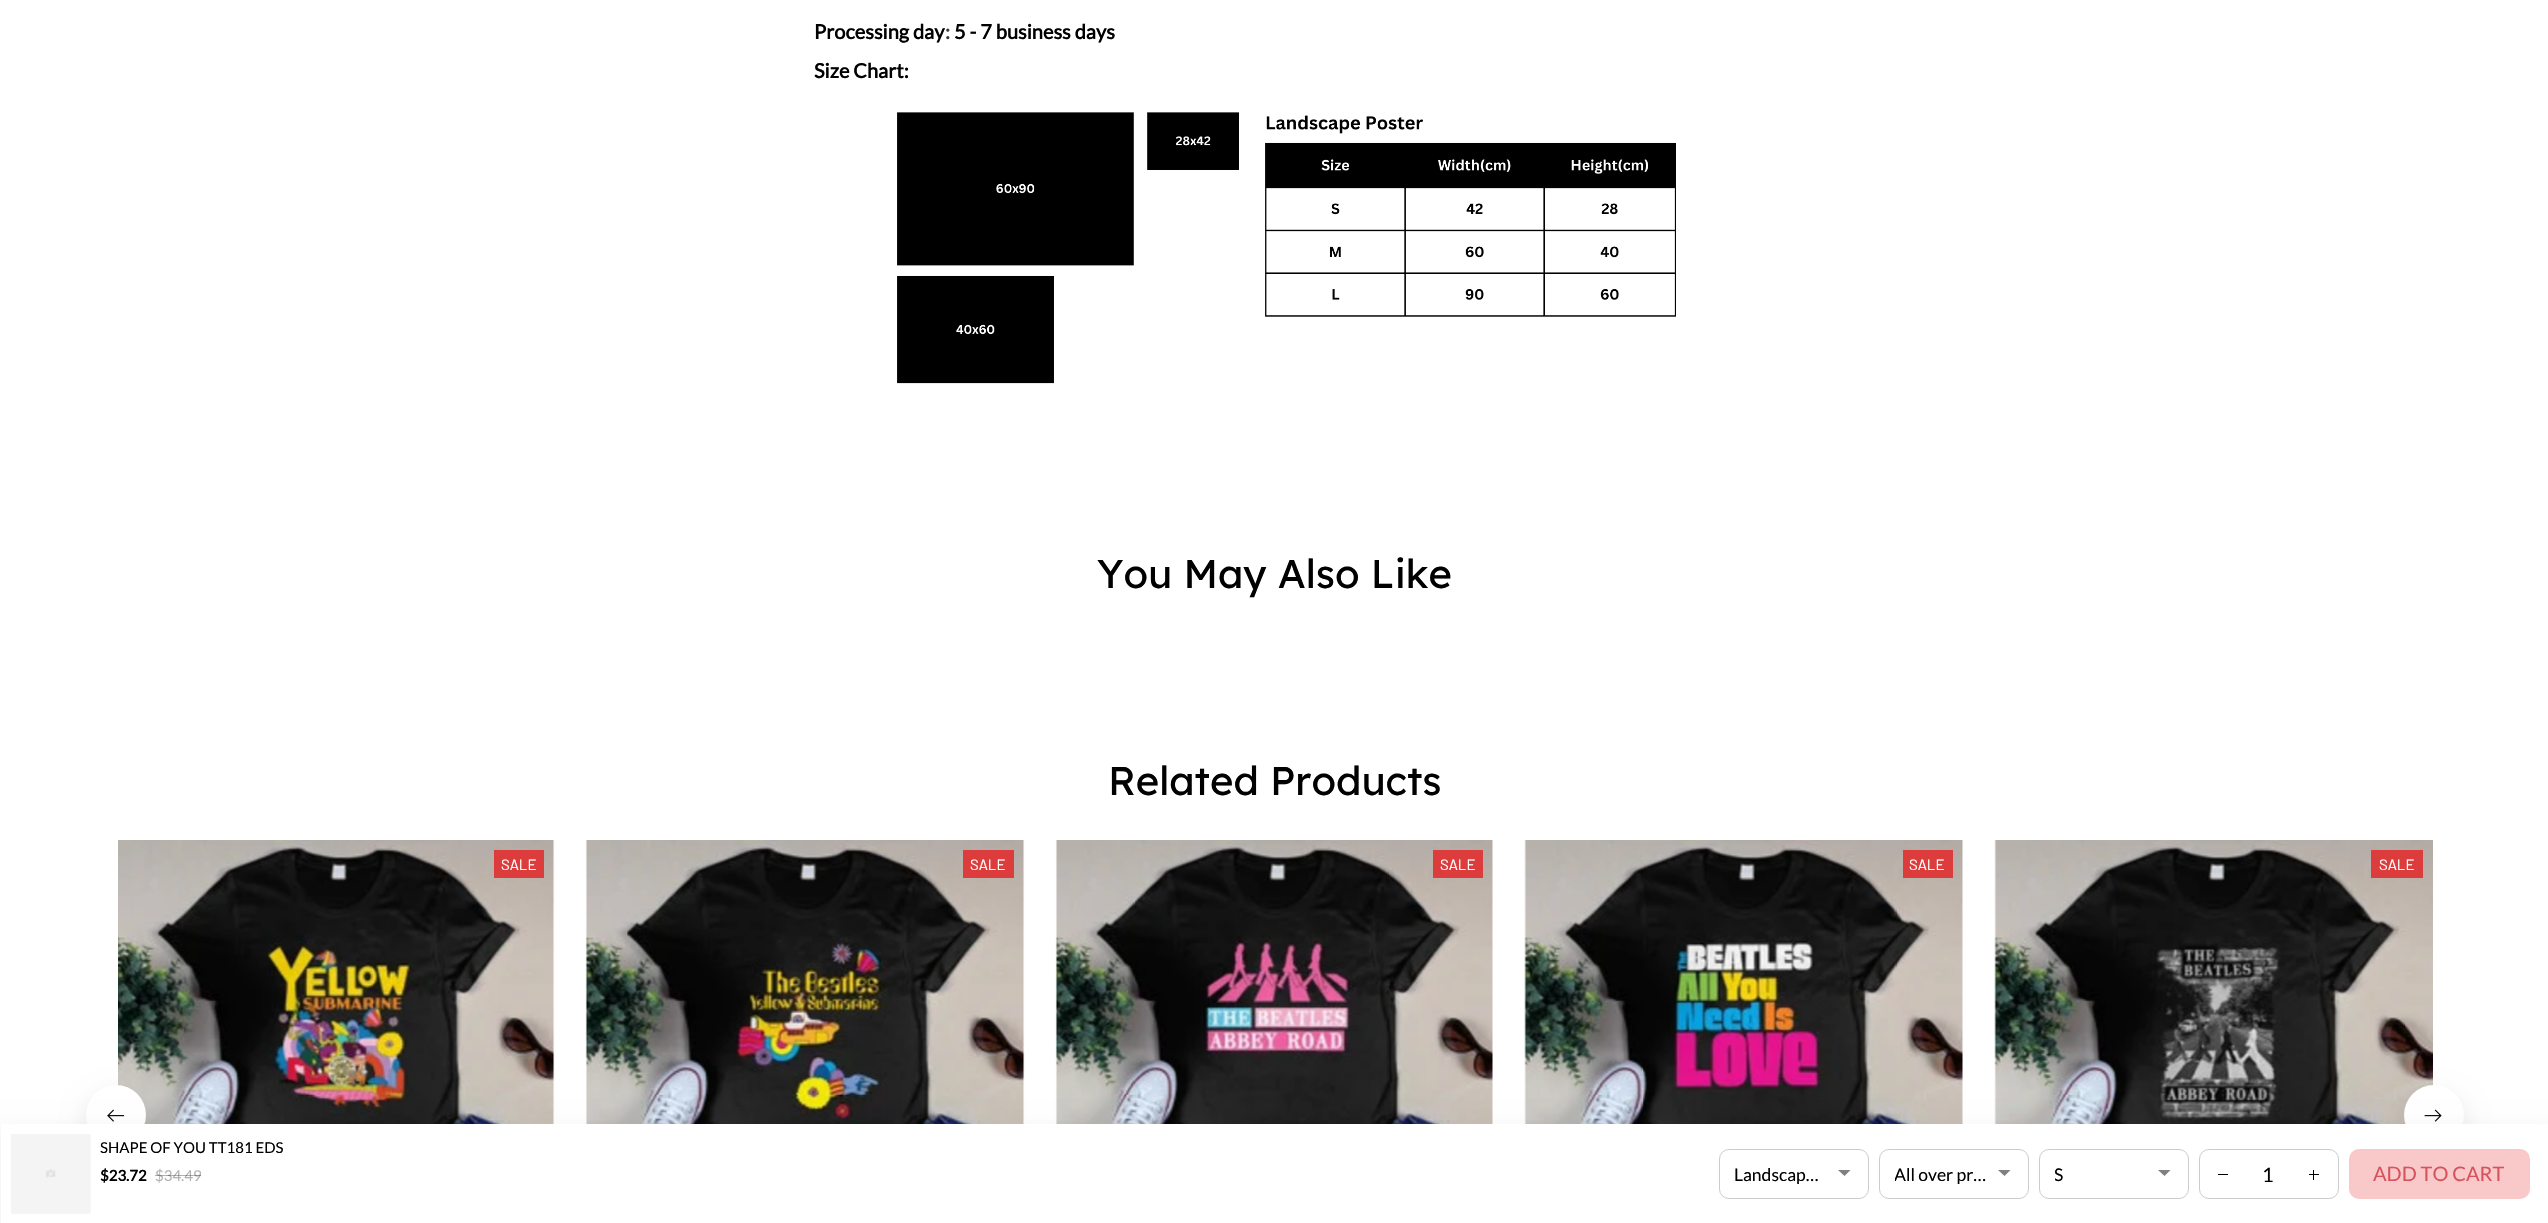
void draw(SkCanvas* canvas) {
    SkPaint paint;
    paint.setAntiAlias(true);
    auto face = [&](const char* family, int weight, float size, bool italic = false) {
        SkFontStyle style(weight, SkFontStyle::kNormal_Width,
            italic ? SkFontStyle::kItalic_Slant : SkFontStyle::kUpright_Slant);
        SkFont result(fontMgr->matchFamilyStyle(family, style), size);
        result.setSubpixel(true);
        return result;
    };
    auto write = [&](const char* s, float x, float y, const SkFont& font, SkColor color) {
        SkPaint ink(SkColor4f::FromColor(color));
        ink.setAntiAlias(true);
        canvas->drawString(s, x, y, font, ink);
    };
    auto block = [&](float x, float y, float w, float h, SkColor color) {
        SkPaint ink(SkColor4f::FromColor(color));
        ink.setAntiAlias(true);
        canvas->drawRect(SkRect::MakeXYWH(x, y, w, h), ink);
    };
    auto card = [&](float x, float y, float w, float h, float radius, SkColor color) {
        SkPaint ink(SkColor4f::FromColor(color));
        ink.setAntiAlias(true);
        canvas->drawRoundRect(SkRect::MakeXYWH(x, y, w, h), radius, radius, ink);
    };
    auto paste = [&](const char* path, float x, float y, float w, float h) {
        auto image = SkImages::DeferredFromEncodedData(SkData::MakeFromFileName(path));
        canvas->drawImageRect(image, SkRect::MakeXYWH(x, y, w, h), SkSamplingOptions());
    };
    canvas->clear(SK_ColorWHITE);
    auto kFont1 = face("Lato", 700, 20);
    write("Processing day", 814, 39, kFont1, SK_ColorBLACK);
    write(":", 945, 39, kFont1, SkColorSetRGB(54, 63, 68));
    write("5 - 7 business days", 954, 39, kFont1, SK_ColorBLACK);
    write("Size Chart:", 814, 78, kFont1, SK_ColorBLACK);
    paste("pic1.png", 897, 112, 779, 272);
    auto kFont2 = face("Lexend", 400, 40);
    write("You May Also Like", 1097, 588, kFont2, SK_ColorBLACK);
    write("Related Products", 1108, 795, kFont2, SK_ColorBLACK);
    paste("pic2.png", 118, 840, 437, 284);
    block(494, 850, 50, 28, SkColorSetRGB(221, 60, 60));
    auto kFont3 = face("Barlow", 400, 15);
    write("SALE", 501, 870, kFont3, SK_ColorWHITE);
    paste("pic3.png", 585, 840, 440, 284);
    block(963, 850, 51, 28, SkColorSetRGB(221, 60, 60));
    write("SALE", 970, 870, kFont3, SK_ColorWHITE);
    paste("pic4.png", 1055, 840, 438, 284);
    block(1433, 850, 50, 28, SkColorSetRGB(221, 60, 60));
    write("SALE", 1440, 870, kFont3, SK_ColorWHITE);
    paste("pic5.png", 1524, 840, 439, 284);
    block(1903, 850, 50, 28, SkColorSetRGB(221, 60, 60));
    write("SALE", 1909, 870, kFont3, SK_ColorWHITE);
    paste("pic6.png", 1994, 840, 439, 284);
    block(2371, 850, 52, 28, SkColorSetRGB(221, 60, 60));
    write("SALE", 2379, 870, kFont3, SK_ColorWHITE);
    paint.setColor(SkColorSetARGB(15, 0, 0, 0));
    paint.setMaskFilter(SkMaskFilter::MakeBlur(kNormal_SkBlurStyle, 10));
    canvas->drawRoundRect(SkRect::MakeXYWH(81, 1090, 70, 70), 35, 35, paint);
    paint.setMaskFilter(nullptr);
    paint.setColor(SK_ColorWHITE);
    canvas->drawCircle(116, 1115, 30, paint);
    paste("pic7.png", 107, 1109, 18, 13);
    paint.setColor(SkColorSetARGB(15, 0, 0, 0));
    paint.setMaskFilter(SkMaskFilter::MakeBlur(kNormal_SkBlurStyle, 10));
    canvas->drawRoundRect(SkRect::MakeXYWH(2399, 1090, 70, 70), 35, 35, paint);
    paint.setMaskFilter(nullptr);
    paint.setColor(SK_ColorWHITE);
    canvas->drawCircle(2434, 1115, 30, paint);
    paste("pic8.png", 2424, 1109, 18, 13);
    paint.setColor(SkColorSetARGB(15, 0, 0, 0));
    paint.setMaskFilter(SkMaskFilter::MakeBlur(kNormal_SkBlurStyle, 10));
    canvas->drawRect(SkRect::MakeXYWH(-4, 1129, 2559, 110), paint);
    paint.setMaskFilter(nullptr);
    block(1, 1124, 2547, 99, SK_ColorWHITE);
    paste("pic9.png", 11, 1134, 80, 80);
    auto kFont4 = face("Lato", 400, 15);
    write("SHAPE OF YOU TT181 EDS", 100, 1153, kFont4, SK_ColorBLACK);
    auto kFont5 = face("Lato", 700, 15);
    write("$23.72", 100, 1181, kFont5, SK_ColorBLACK);
    write("$34.49", 155, 1181, kFont4, SkColorSetRGB(179, 179, 179));
    block(155, 1175, 46, 1, SkColorSetARGB(77, 0, 0, 0));
    paint.setColor(SkColorSetRGB(128, 128, 128));
    canvas->drawPath(SkPathBuilder().moveTo(1838, 1170).lineTo(1850.5f, 1170).lineTo(1844.5f, 1176).close().detach(), paint);
    paint.setStyle(SkPaint::kStroke_Style);
    paint.setStrokeWidth(1);
    paint.setColor(SkColorSetRGB(204, 204, 204));
    canvas->drawRoundRect(SkRect::MakeXYWH(1719.5f, 1149.5f, 149, 49), 9.5f, 9.5f, paint);
    auto kFont6 = face("Lato", 400, 17.5f);
    write("Landscap…", 1734, 1181, kFont6, SK_ColorBLACK);
    paint.setStyle(SkPaint::kFill_Style);
    paint.setColor(SkColorSetRGB(128, 128, 128));
    canvas->drawPath(SkPathBuilder().moveTo(1998, 1170).lineTo(2010.5f, 1170).lineTo(2004.5f, 1176).close().detach(), paint);
    paint.setStyle(SkPaint::kStroke_Style);
    paint.setColor(SkColorSetRGB(204, 204, 204));
    canvas->drawRoundRect(SkRect::MakeXYWH(1879.5f, 1149.5f, 149, 49), 9.5f, 9.5f, paint);
    canvas->save();
    canvas->clipRect(SkRect::MakeXYWH(1895, 1164, 93, 21));
    write("All over pr…", 1894, 1181, kFont6, SK_ColorBLACK);
    canvas->restore();
    paint.setStyle(SkPaint::kFill_Style);
    paint.setColor(SkColorSetRGB(128, 128, 128));
    canvas->drawPath(SkPathBuilder().moveTo(2158, 1170).lineTo(2170.5f, 1170).lineTo(2164.5f, 1176).close().detach(), paint);
    paint.setStyle(SkPaint::kStroke_Style);
    paint.setColor(SkColorSetRGB(204, 204, 204));
    canvas->drawRoundRect(SkRect::MakeXYWH(2039.5f, 1149.5f, 149, 49), 9.5f, 9.5f, paint);
    canvas->save();
    canvas->clipRect(SkRect::MakeXYWH(2055, 1164, 93, 21));
    write("S", 2054, 1181, kFont6, SK_ColorBLACK);
    canvas->restore();
    canvas->drawRoundRect(SkRect::MakeXYWH(2199.5f, 1149.5f, 139, 49), 9.5f, 9.5f, paint);
    block(2218, 1174, 10, 1, SK_ColorBLACK);
    auto kFont7 = face("Lato", 400, 20);
    write("1", 2262, 1182, kFont7, SK_ColorBLACK);
    block(2309, 1174, 10, 1, SK_ColorBLACK);
    block(2313, 1170, 1, 10, SK_ColorBLACK);
    card(2349, 1149, 181, 50, 10, SkColorSetRGB(249, 200, 200));
    write("ADD TO CART", 2373, 1181, kFont7, SkColorSetRGB(214, 82, 93));
}
